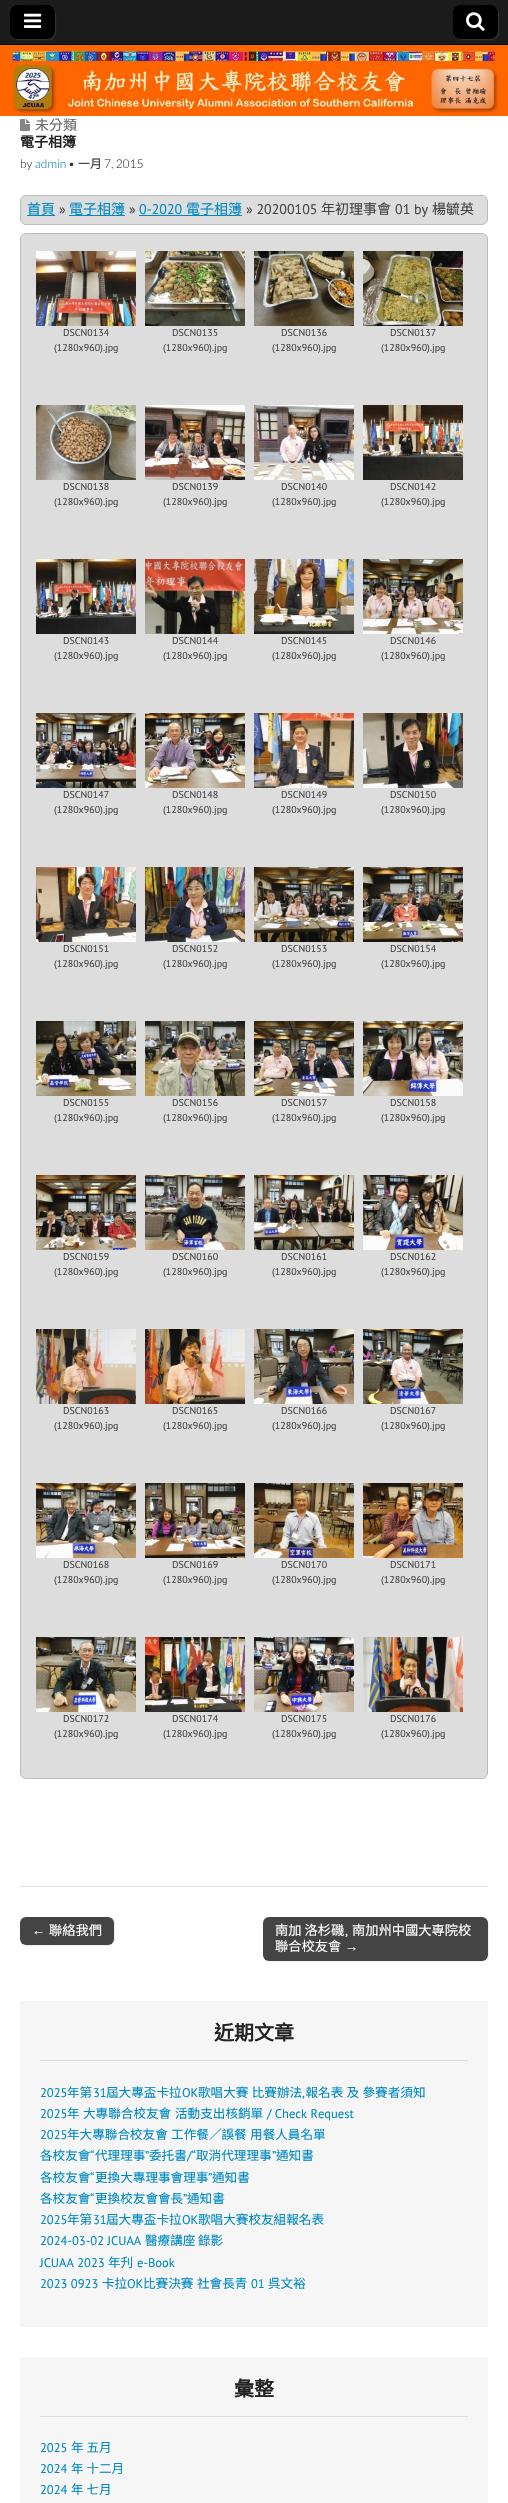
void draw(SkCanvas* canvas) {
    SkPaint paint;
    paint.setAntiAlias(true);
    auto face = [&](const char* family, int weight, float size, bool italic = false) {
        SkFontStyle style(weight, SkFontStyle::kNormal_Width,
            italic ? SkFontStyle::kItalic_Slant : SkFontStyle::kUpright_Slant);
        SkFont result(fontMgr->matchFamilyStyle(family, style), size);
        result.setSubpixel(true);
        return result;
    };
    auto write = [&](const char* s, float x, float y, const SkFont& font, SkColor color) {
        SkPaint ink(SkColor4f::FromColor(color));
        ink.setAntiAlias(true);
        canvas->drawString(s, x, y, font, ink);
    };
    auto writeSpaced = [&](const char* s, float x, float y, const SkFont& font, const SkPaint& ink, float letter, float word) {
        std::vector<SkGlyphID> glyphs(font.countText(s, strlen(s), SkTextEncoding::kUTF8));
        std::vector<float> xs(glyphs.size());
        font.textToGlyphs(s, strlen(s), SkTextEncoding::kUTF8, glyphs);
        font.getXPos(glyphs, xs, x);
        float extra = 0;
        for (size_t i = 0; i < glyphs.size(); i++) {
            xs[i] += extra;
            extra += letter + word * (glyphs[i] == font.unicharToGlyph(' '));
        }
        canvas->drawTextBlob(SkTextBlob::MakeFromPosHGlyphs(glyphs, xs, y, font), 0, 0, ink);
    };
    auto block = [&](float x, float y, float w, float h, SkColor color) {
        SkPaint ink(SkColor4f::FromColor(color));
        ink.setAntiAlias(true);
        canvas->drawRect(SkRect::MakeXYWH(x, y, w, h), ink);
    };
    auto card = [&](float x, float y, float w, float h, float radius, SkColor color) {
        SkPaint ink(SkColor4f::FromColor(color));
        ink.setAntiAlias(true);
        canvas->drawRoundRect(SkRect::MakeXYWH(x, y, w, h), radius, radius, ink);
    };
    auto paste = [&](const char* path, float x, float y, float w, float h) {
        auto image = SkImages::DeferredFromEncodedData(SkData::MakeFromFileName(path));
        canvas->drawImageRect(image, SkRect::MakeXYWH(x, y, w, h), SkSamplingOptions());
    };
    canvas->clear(SK_ColorWHITE);
    block(0, 0, 508, 44, SkColorSetRGB(27, 27, 27));
    block(0, 44, 508, 1, SK_ColorBLACK);
    paint.setColor(SkColorSetRGB(51, 51, 51));
    paint.setMaskFilter(SkMaskFilter::MakeBlur(kNormal_SkBlurStyle, 0.5f));
    canvas->drawRoundRect(SkRect::MakeXYWH(11, 6, 45, 34), 8, 8, paint);
    paint.setMaskFilter(nullptr);
    card(10, 5, 45, 34, 8, SK_ColorBLACK);
    paint.setColor(SK_ColorBLACK);
    canvas->drawPath(SkPathBuilder().moveTo(19, 6).lineTo(50, 6).lineTo(52, 7).cubicTo(49, 4, 46, 5, 42, 5).lineTo(32, 5).cubicTo(10, 5, 10, 3, 10, 25).cubicTo(10, 29, 9, 34, 13, 37).cubicTo(10, 33, 10, 13, 13, 9).cubicTo(14, 7, 16, 6, 19, 6).close().detach(), paint);
    paste("pic1.png", 24, 13, 18, 15);
    paint.setColor(SkColorSetRGB(51, 51, 51));
    paint.setMaskFilter(SkMaskFilter::MakeBlur(kNormal_SkBlurStyle, 0.5f));
    canvas->drawRoundRect(SkRect::MakeXYWH(454, 6, 45, 34), 8, 8, paint);
    paint.setMaskFilter(nullptr);
    card(453, 5, 45, 34, 8, SK_ColorBLACK);
    paint.setColor(SK_ColorBLACK);
    canvas->drawPath(SkPathBuilder().moveTo(462, 6).lineTo(493, 6).lineTo(495, 7).cubicTo(492, 4, 489, 5, 485, 5).lineTo(476, 5).cubicTo(453, 5, 453, 3, 453, 25).cubicTo(453, 29, 452, 34, 456, 37).cubicTo(453, 33, 453, 13, 456, 9).cubicTo(457, 7, 459, 6, 462, 6).close().detach(), paint);
    paste("pic2.png", 466, 12, 19, 19);
    paste("pic3.png", 0, 45, 508, 71);
    block(20, 1886, 468, 1, SkColorSetRGB(226, 226, 226));
    paste("pic4.png", 20, 119, 10, 12);
    auto kFont1 = face("Noto Sans CJK TC", 400, 14);
    write("未分類", 35, 130, kFont1, SkColorSetRGB(102, 102, 102));
    auto kFont2 = face("Noto Sans CJK TC", 700, 14);
    write("電子相簿", 20, 147, kFont2, SkColorSetRGB(34, 34, 34));
    auto kFont3 = face("Lato", 300, 12);
    write("by", 20, 168, kFont3, SkColorSetRGB(51, 51, 51));
    write("admin", 35, 168, kFont3, SkColorSetRGB(0, 137, 196));
    write("•", 68, 168, kFont3, SkColorSetRGB(51, 51, 51));
    auto kFont4 = face("Noto Sans CJK TC", 400, 12);
    write("一月", 78, 168, kFont4, SkColorSetRGB(51, 51, 51));
    write("7, 2015", 104, 168, kFont3, SkColorSetRGB(51, 51, 51));
    paint.setColor(SkColorSetRGB(221, 221, 221));
    canvas->drawRoundRect(SkRect::MakeXYWH(20.5f, 195.5f, 467, 29), 5.5f, 5.5f, paint);
    paint.setStyle(SkPaint::kStroke_Style);
    paint.setStrokeWidth(1);
    paint.setColor(SkColorSetRGB(187, 187, 187));
    canvas->drawRoundRect(SkRect::MakeXYWH(20.5f, 195.5f, 467, 29), 5.5f, 5.5f, paint);
    block(27, 215, 28, 1, SkColorSetRGB(0, 137, 196));
    write("首頁", 27, 214, kFont1, SkColorSetRGB(0, 137, 196));
    auto kFont5 = face("PT Sans", 400, 14);
    write("»", 59, 214, kFont5, SkColorSetRGB(68, 68, 68));
    block(69, 215, 56, 1, SkColorSetRGB(0, 137, 196));
    write("電子相簿", 69, 214, kFont1, SkColorSetRGB(0, 137, 196));
    write("»", 129, 214, kFont5, SkColorSetRGB(68, 68, 68));
    write("0-2020", 139, 214, kFont5, SkColorSetRGB(0, 137, 196));
    block(139, 215, 103, 1, SkColorSetRGB(0, 137, 196));
    write("電子相簿", 186, 214, kFont1, SkColorSetRGB(0, 137, 196));
    write("» 20200105", 246, 214, kFont5, SkColorSetRGB(68, 68, 68));
    write("年初理事會", 321, 214, kFont1, SkColorSetRGB(68, 68, 68));
    write("01 by", 395, 214, kFont5, SkColorSetRGB(68, 68, 68));
    write("楊毓英", 432, 214, kFont1, SkColorSetRGB(68, 68, 68));
    paint.setStyle(SkPaint::kFill_Style);
    paint.setColor(SkColorSetRGB(221, 221, 221));
    canvas->drawRoundRect(SkRect::MakeXYWH(20.5f, 233.5f, 467, 1545), 5.5f, 5.5f, paint);
    paint.setStyle(SkPaint::kStroke_Style);
    paint.setColor(SkColorSetRGB(187, 187, 187));
    canvas->drawRoundRect(SkRect::MakeXYWH(20.5f, 233.5f, 467, 1545), 5.5f, 5.5f, paint);
    paste("pic5.png", 36, 251, 100, 75);
    auto kFont6 = face("PT Sans", 400, 10);
    write("DSCN0134", 63, 336, kFont6, SkColorSetRGB(68, 68, 68));
    write("(1280x960).jpg", 54, 351, kFont6, SkColorSetRGB(68, 68, 68));
    paste("pic6.png", 145, 251, 100, 75);
    write("DSCN0135", 172, 336, kFont6, SkColorSetRGB(68, 68, 68));
    write("(1280x960).jpg", 163, 351, kFont6, SkColorSetRGB(68, 68, 68));
    paste("pic7.png", 254, 251, 100, 75);
    write("DSCN0136", 281, 336, kFont6, SkColorSetRGB(68, 68, 68));
    write("(1280x960).jpg", 272, 351, kFont6, SkColorSetRGB(68, 68, 68));
    paste("pic8.png", 363, 251, 100, 75);
    write("DSCN0137", 390, 336, kFont6, SkColorSetRGB(68, 68, 68));
    write("(1280x960).jpg", 381, 351, kFont6, SkColorSetRGB(68, 68, 68));
    paste("pic9.png", 36, 405, 100, 75);
    write("DSCN0138", 63, 490, kFont6, SkColorSetRGB(68, 68, 68));
    write("(1280x960).jpg", 54, 505, kFont6, SkColorSetRGB(68, 68, 68));
    paste("pic10.png", 145, 405, 100, 75);
    write("DSCN0139", 172, 490, kFont6, SkColorSetRGB(68, 68, 68));
    write("(1280x960).jpg", 163, 505, kFont6, SkColorSetRGB(68, 68, 68));
    paste("pic11.png", 254, 405, 100, 75);
    write("DSCN0140", 281, 490, kFont6, SkColorSetRGB(68, 68, 68));
    write("(1280x960).jpg", 272, 505, kFont6, SkColorSetRGB(68, 68, 68));
    paste("pic12.png", 363, 405, 100, 75);
    write("DSCN0142", 390, 490, kFont6, SkColorSetRGB(68, 68, 68));
    write("(1280x960).jpg", 381, 505, kFont6, SkColorSetRGB(68, 68, 68));
    paste("pic13.png", 36, 559, 100, 75);
    write("DSCN0143", 63, 644, kFont6, SkColorSetRGB(68, 68, 68));
    write("(1280x960).jpg", 54, 659, kFont6, SkColorSetRGB(68, 68, 68));
    paste("pic14.png", 145, 559, 100, 75);
    write("DSCN0144", 172, 644, kFont6, SkColorSetRGB(68, 68, 68));
    write("(1280x960).jpg", 163, 659, kFont6, SkColorSetRGB(68, 68, 68));
    paste("pic15.png", 254, 559, 100, 75);
    write("DSCN0145", 281, 644, kFont6, SkColorSetRGB(68, 68, 68));
    write("(1280x960).jpg", 272, 659, kFont6, SkColorSetRGB(68, 68, 68));
    paste("pic16.png", 363, 559, 100, 75);
    write("DSCN0146", 390, 644, kFont6, SkColorSetRGB(68, 68, 68));
    write("(1280x960).jpg", 381, 659, kFont6, SkColorSetRGB(68, 68, 68));
    paste("pic17.png", 36, 713, 100, 75);
    write("DSCN0147", 63, 798, kFont6, SkColorSetRGB(68, 68, 68));
    write("(1280x960).jpg", 54, 813, kFont6, SkColorSetRGB(68, 68, 68));
    paste("pic18.png", 145, 713, 100, 75);
    write("DSCN0148", 172, 798, kFont6, SkColorSetRGB(68, 68, 68));
    write("(1280x960).jpg", 163, 813, kFont6, SkColorSetRGB(68, 68, 68));
    paste("pic19.png", 254, 713, 100, 75);
    write("DSCN0149", 281, 798, kFont6, SkColorSetRGB(68, 68, 68));
    write("(1280x960).jpg", 272, 813, kFont6, SkColorSetRGB(68, 68, 68));
    paste("pic20.png", 363, 713, 100, 75);
    write("DSCN0150", 390, 798, kFont6, SkColorSetRGB(68, 68, 68));
    write("(1280x960).jpg", 381, 813, kFont6, SkColorSetRGB(68, 68, 68));
    paste("pic21.png", 36, 867, 100, 75);
    write("DSCN0151", 63, 952, kFont6, SkColorSetRGB(68, 68, 68));
    write("(1280x960).jpg", 54, 967, kFont6, SkColorSetRGB(68, 68, 68));
    paste("pic22.png", 145, 867, 100, 75);
    write("DSCN0152", 172, 952, kFont6, SkColorSetRGB(68, 68, 68));
    write("(1280x960).jpg", 163, 967, kFont6, SkColorSetRGB(68, 68, 68));
    paste("pic23.png", 254, 867, 100, 75);
    write("DSCN0153", 281, 952, kFont6, SkColorSetRGB(68, 68, 68));
    write("(1280x960).jpg", 272, 967, kFont6, SkColorSetRGB(68, 68, 68));
    paste("pic24.png", 363, 867, 100, 75);
    write("DSCN0154", 390, 952, kFont6, SkColorSetRGB(68, 68, 68));
    write("(1280x960).jpg", 381, 967, kFont6, SkColorSetRGB(68, 68, 68));
    paste("pic25.png", 36, 1021, 100, 75);
    write("DSCN0155", 63, 1106, kFont6, SkColorSetRGB(68, 68, 68));
    write("(1280x960).jpg", 54, 1121, kFont6, SkColorSetRGB(68, 68, 68));
    paste("pic26.png", 145, 1021, 100, 75);
    write("DSCN0156", 172, 1106, kFont6, SkColorSetRGB(68, 68, 68));
    write("(1280x960).jpg", 163, 1121, kFont6, SkColorSetRGB(68, 68, 68));
    paste("pic27.png", 254, 1021, 100, 75);
    write("DSCN0157", 281, 1106, kFont6, SkColorSetRGB(68, 68, 68));
    write("(1280x960).jpg", 272, 1121, kFont6, SkColorSetRGB(68, 68, 68));
    paste("pic28.png", 363, 1021, 100, 75);
    write("DSCN0158", 390, 1106, kFont6, SkColorSetRGB(68, 68, 68));
    write("(1280x960).jpg", 381, 1121, kFont6, SkColorSetRGB(68, 68, 68));
    paste("pic29.png", 36, 1175, 100, 75);
    write("DSCN0159", 63, 1260, kFont6, SkColorSetRGB(68, 68, 68));
    write("(1280x960).jpg", 54, 1275, kFont6, SkColorSetRGB(68, 68, 68));
    paste("pic30.png", 145, 1175, 100, 75);
    write("DSCN0160", 172, 1260, kFont6, SkColorSetRGB(68, 68, 68));
    write("(1280x960).jpg", 163, 1275, kFont6, SkColorSetRGB(68, 68, 68));
    paste("pic31.png", 254, 1175, 100, 75);
    write("DSCN0161", 281, 1260, kFont6, SkColorSetRGB(68, 68, 68));
    write("(1280x960).jpg", 272, 1275, kFont6, SkColorSetRGB(68, 68, 68));
    paste("pic32.png", 363, 1175, 100, 75);
    write("DSCN0162", 390, 1260, kFont6, SkColorSetRGB(68, 68, 68));
    write("(1280x960).jpg", 381, 1275, kFont6, SkColorSetRGB(68, 68, 68));
    paste("pic33.png", 36, 1329, 100, 75);
    write("DSCN0163", 63, 1414, kFont6, SkColorSetRGB(68, 68, 68));
    write("(1280x960).jpg", 54, 1429, kFont6, SkColorSetRGB(68, 68, 68));
    paste("pic34.png", 145, 1329, 100, 75);
    write("DSCN0165", 172, 1414, kFont6, SkColorSetRGB(68, 68, 68));
    write("(1280x960).jpg", 163, 1429, kFont6, SkColorSetRGB(68, 68, 68));
    paste("pic35.png", 254, 1329, 100, 75);
    write("DSCN0166", 281, 1414, kFont6, SkColorSetRGB(68, 68, 68));
    write("(1280x960).jpg", 272, 1429, kFont6, SkColorSetRGB(68, 68, 68));
    paste("pic36.png", 363, 1329, 100, 75);
    write("DSCN0167", 390, 1414, kFont6, SkColorSetRGB(68, 68, 68));
    write("(1280x960).jpg", 381, 1429, kFont6, SkColorSetRGB(68, 68, 68));
    paste("pic37.png", 36, 1483, 100, 75);
    write("DSCN0168", 63, 1568, kFont6, SkColorSetRGB(68, 68, 68));
    write("(1280x960).jpg", 54, 1583, kFont6, SkColorSetRGB(68, 68, 68));
    paste("pic38.png", 145, 1483, 100, 75);
    write("DSCN0169", 172, 1568, kFont6, SkColorSetRGB(68, 68, 68));
    write("(1280x960).jpg", 163, 1583, kFont6, SkColorSetRGB(68, 68, 68));
    paste("pic39.png", 254, 1483, 100, 75);
    write("DSCN0170", 281, 1568, kFont6, SkColorSetRGB(68, 68, 68));
    write("(1280x960).jpg", 272, 1583, kFont6, SkColorSetRGB(68, 68, 68));
    paste("pic40.png", 363, 1483, 100, 75);
    write("DSCN0171", 390, 1568, kFont6, SkColorSetRGB(68, 68, 68));
    write("(1280x960).jpg", 381, 1583, kFont6, SkColorSetRGB(68, 68, 68));
    paste("pic41.png", 36, 1637, 100, 75);
    write("DSCN0172", 63, 1722, kFont6, SkColorSetRGB(68, 68, 68));
    write("(1280x960).jpg", 54, 1737, kFont6, SkColorSetRGB(68, 68, 68));
    paste("pic42.png", 145, 1637, 100, 75);
    write("DSCN0174", 172, 1722, kFont6, SkColorSetRGB(68, 68, 68));
    write("(1280x960).jpg", 163, 1737, kFont6, SkColorSetRGB(68, 68, 68));
    paste("pic43.png", 254, 1637, 100, 75);
    write("DSCN0175", 281, 1722, kFont6, SkColorSetRGB(68, 68, 68));
    write("(1280x960).jpg", 272, 1737, kFont6, SkColorSetRGB(68, 68, 68));
    paste("pic44.png", 363, 1637, 100, 75);
    write("DSCN0176", 390, 1722, kFont6, SkColorSetRGB(68, 68, 68));
    write("(1280x960).jpg", 381, 1737, kFont6, SkColorSetRGB(68, 68, 68));
    paint.setStyle(SkPaint::kFill_Style);
    paint.setColor(SkColorSetRGB(238, 238, 238));
    canvas->drawPath(SkPathBuilder().moveTo(22, 1944).cubicTo(23, 1945, 25, 1946, 27, 1946).lineTo(109, 1946).cubicTo(112, 1946, 115, 1943, 115, 1940).lineTo(115, 1924).cubicTo(115, 1922, 114, 1920, 113, 1919).cubicTo(114, 1920, 114, 1922, 114, 1923).lineTo(114, 1939).cubicTo(114, 1942, 111, 1945, 108, 1945).lineTo(26, 1945).cubicTo(25, 1945, 23, 1945, 22, 1944).close().detach(), paint);
    card(20, 1917, 94, 28, 6, SkColorSetRGB(68, 68, 68));
    auto kFont7 = face("Liberation Sans", 400, 13.25f);
    write("←", 32, 1935, kFont7, SK_ColorWHITE);
    auto kFont8 = face("Noto Sans CJK TC", 400, 13.25f);
    write("聯絡我們", 49, 1935, kFont8, SK_ColorWHITE);
    canvas->drawPath(SkPathBuilder().moveTo(265, 1960).cubicTo(266, 1961, 268, 1962, 270, 1962).lineTo(483, 1962).cubicTo(486, 1962, 489, 1959, 489, 1956).lineTo(489, 1924).cubicTo(489, 1922, 488, 1920, 487, 1919).cubicTo(488, 1920, 488, 1922, 488, 1923).lineTo(488, 1955).cubicTo(488, 1958, 485, 1961, 482, 1961).lineTo(269, 1961).cubicTo(268, 1961, 266, 1961, 265, 1960).close().detach(), paint);
    card(263, 1917, 225, 44, 6, SkColorSetRGB(68, 68, 68));
    write("南加 洛杉磯", 275, 1935, kFont8, SK_ColorWHITE);
    auto kFont9 = face("PT Sans", 400, 13.25f);
    write(",", 345, 1935, kFont9, SK_ColorWHITE);
    write("南加州中國大專院校", 352, 1935, kFont8, SK_ColorWHITE);
    write("聯合校友會", 275, 1951, kFont8, SK_ColorWHITE);
    write("→", 345, 1951, kFont7, SK_ColorWHITE);
    block(20, 2001, 468, 326, SkColorSetRGB(246, 246, 246));
    block(40, 2060, 428, 1, SkColorSetRGB(221, 221, 221));
    auto kFont10 = face("Noto Sans CJK TC", 700, 20);
    write("近期文章", 214, 2040, kFont10, SkColorSetRGB(34, 34, 34));
    auto kFont11 = face("PT Sans", 400, 12.6f);
    write("2025", 40, 2097, kFont11, SkColorSetRGB(0, 137, 196));
    auto kFont12 = face("Noto Sans CJK TC", 400, 12.6f);
    write("年第", 67, 2097, kFont12, SkColorSetRGB(0, 137, 196));
    write("31", 93, 2097, kFont11, SkColorSetRGB(0, 137, 196));
    write("屆大專盃卡拉", 106, 2097, kFont12, SkColorSetRGB(0, 137, 196));
    write("OK", 182, 2097, kFont11, SkColorSetRGB(0, 137, 196));
    paint.setColor(SkColorSetRGB(0, 137, 196));
    writeSpaced("歌唱大賽 比賽辦法 報名表 及 參賽者須知", 198, 2097, kFont12, paint, 0, 0.5f);
    write(",", 302, 2097, kFont11, SkColorSetRGB(0, 137, 196));
    write("2025", 40, 2118, kFont11, SkColorSetRGB(0, 137, 196));
    write("年", 67, 2118, kFont12, SkColorSetRGB(0, 137, 196));
    write("大專聯合校友會", 83, 2118, kFont12, SkColorSetRGB(0, 137, 196));
    write("活動支出核銷單", 175, 2118, kFont12, SkColorSetRGB(0, 137, 196));
    write("/ Check Request", 267, 2118, kFont11, SkColorSetRGB(0, 137, 196));
    write("2025", 40, 2139, kFont11, SkColorSetRGB(0, 137, 196));
    writeSpaced("年大專聯合校友會 工作餐／誤餐 用餐人員名單", 67, 2139, kFont12, paint, 0, 0.5f);
    write("各校友會", 40, 2160, kFont12, SkColorSetRGB(0, 137, 196));
    write("“", 90, 2160, kFont11, SkColorSetRGB(0, 137, 196));
    write("代理理事", 95, 2160, kFont12, SkColorSetRGB(0, 137, 196));
    write("”", 145, 2160, kFont11, SkColorSetRGB(0, 137, 196));
    write("委托書", 149, 2160, kFont12, SkColorSetRGB(0, 137, 196));
    write("/“", 187, 2160, kFont11, SkColorSetRGB(0, 137, 196));
    write("取消代理理事", 196, 2160, kFont12, SkColorSetRGB(0, 137, 196));
    write("”", 272, 2160, kFont11, SkColorSetRGB(0, 137, 196));
    write("通知書", 276, 2160, kFont12, SkColorSetRGB(0, 137, 196));
    write("各校友會", 40, 2182, kFont12, SkColorSetRGB(0, 137, 196));
    write("“", 90, 2182, kFont11, SkColorSetRGB(0, 137, 196));
    write("更換大專理事會理事", 95, 2182, kFont12, SkColorSetRGB(0, 137, 196));
    write("”", 208, 2182, kFont11, SkColorSetRGB(0, 137, 196));
    write("通知書", 212, 2182, kFont12, SkColorSetRGB(0, 137, 196));
    write("各校友會", 40, 2203, kFont12, SkColorSetRGB(0, 137, 196));
    write("“", 90, 2203, kFont11, SkColorSetRGB(0, 137, 196));
    write("更換校友會會長", 95, 2203, kFont12, SkColorSetRGB(0, 137, 196));
    write("”", 183, 2203, kFont11, SkColorSetRGB(0, 137, 196));
    write("通知書", 187, 2203, kFont12, SkColorSetRGB(0, 137, 196));
    write("2025", 40, 2224, kFont11, SkColorSetRGB(0, 137, 196));
    write("年第", 67, 2224, kFont12, SkColorSetRGB(0, 137, 196));
    write("31", 93, 2224, kFont11, SkColorSetRGB(0, 137, 196));
    write("屆大專盃卡拉", 106, 2224, kFont12, SkColorSetRGB(0, 137, 196));
    write("OK", 182, 2224, kFont11, SkColorSetRGB(0, 137, 196));
    write("歌唱大賽校友組報名表", 198, 2224, kFont12, SkColorSetRGB(0, 137, 196));
    write("2024-03-02 JCUAA", 40, 2245, kFont11, SkColorSetRGB(0, 137, 196));
    write("醫療講座", 145, 2245, kFont12, SkColorSetRGB(0, 137, 196));
    write("錄影", 198, 2245, kFont12, SkColorSetRGB(0, 137, 196));
    write("JCUAA 2023", 40, 2267, kFont11, SkColorSetRGB(0, 137, 196));
    write("年刋", 108, 2267, kFont12, SkColorSetRGB(0, 137, 196));
    write("e-Book", 137, 2267, kFont11, SkColorSetRGB(0, 137, 196));
    write("2023 0923", 40, 2288, kFont11, SkColorSetRGB(0, 137, 196));
    write("卡拉", 102, 2288, kFont12, SkColorSetRGB(0, 137, 196));
    write("OK", 127, 2288, kFont11, SkColorSetRGB(0, 137, 196));
    write("比賽決賽", 143, 2288, kFont12, SkColorSetRGB(0, 137, 196));
    write("社會長青", 197, 2288, kFont12, SkColorSetRGB(0, 137, 196));
    write("01", 251, 2288, kFont11, SkColorSetRGB(0, 137, 196));
    write("呉文裕", 268, 2288, kFont12, SkColorSetRGB(0, 137, 196));
    block(20, 2357, 468, 146, SkColorSetRGB(246, 246, 246));
    block(40, 2416, 428, 1, SkColorSetRGB(221, 221, 221));
    write("彙整", 234, 2396, kFont10, SkColorSetRGB(34, 34, 34));
    write("2025", 40, 2452, kFont11, SkColorSetRGB(0, 137, 196));
    write("年 五月", 71, 2452, kFont12, SkColorSetRGB(0, 137, 196));
    write("2024", 40, 2473, kFont11, SkColorSetRGB(0, 137, 196));
    write("年 十二月", 71, 2473, kFont12, SkColorSetRGB(0, 137, 196));
    write("2024", 40, 2494, kFont11, SkColorSetRGB(0, 137, 196));
    write("年 七月", 71, 2494, kFont12, SkColorSetRGB(0, 137, 196));
}
